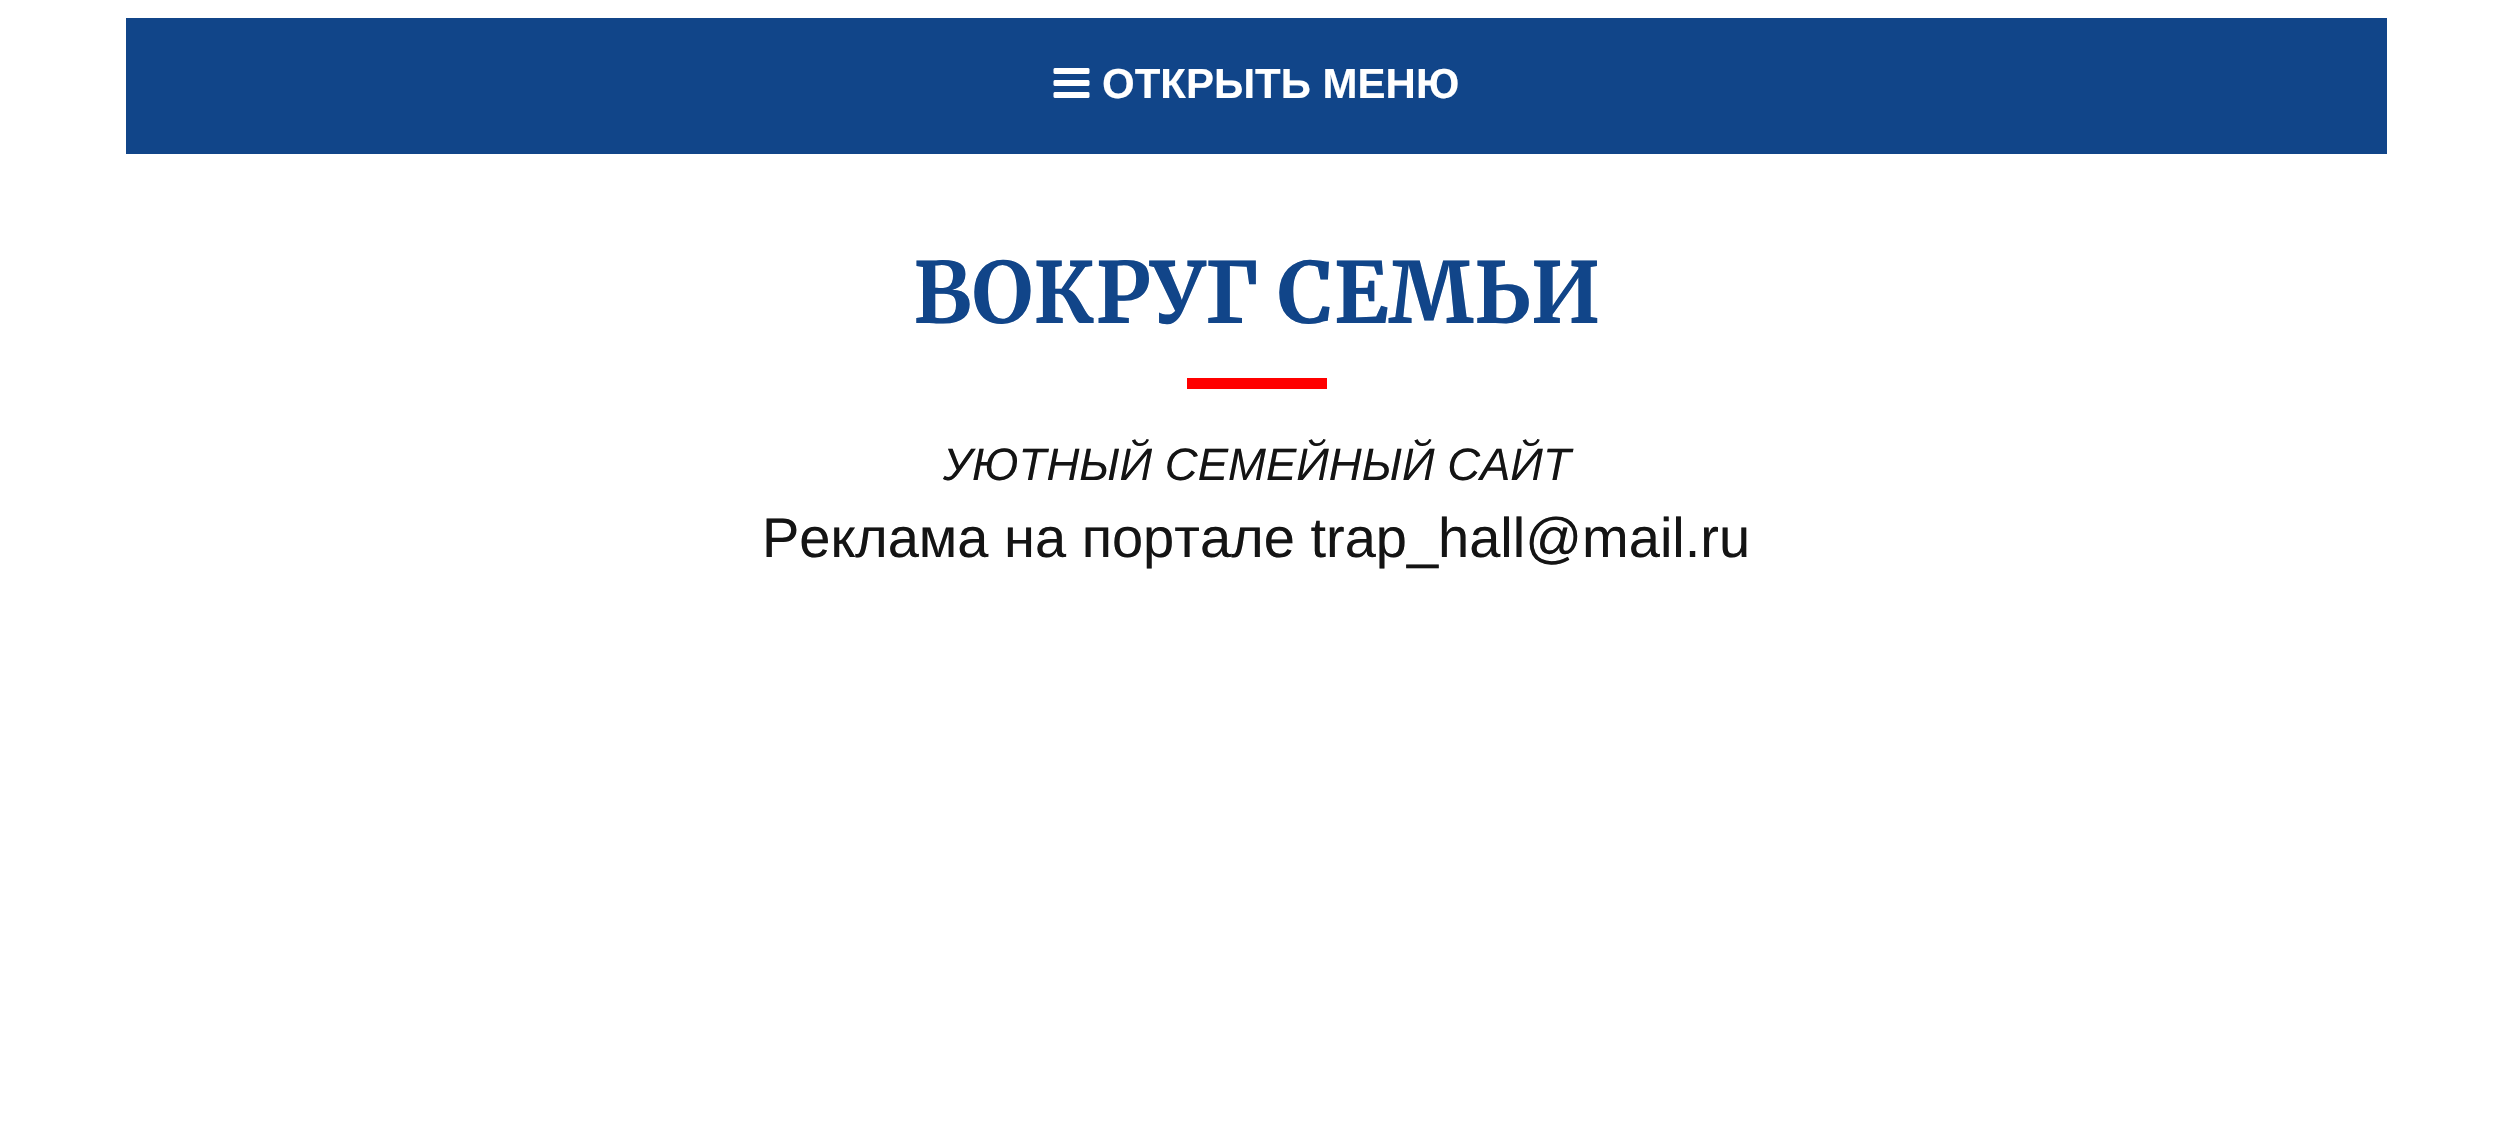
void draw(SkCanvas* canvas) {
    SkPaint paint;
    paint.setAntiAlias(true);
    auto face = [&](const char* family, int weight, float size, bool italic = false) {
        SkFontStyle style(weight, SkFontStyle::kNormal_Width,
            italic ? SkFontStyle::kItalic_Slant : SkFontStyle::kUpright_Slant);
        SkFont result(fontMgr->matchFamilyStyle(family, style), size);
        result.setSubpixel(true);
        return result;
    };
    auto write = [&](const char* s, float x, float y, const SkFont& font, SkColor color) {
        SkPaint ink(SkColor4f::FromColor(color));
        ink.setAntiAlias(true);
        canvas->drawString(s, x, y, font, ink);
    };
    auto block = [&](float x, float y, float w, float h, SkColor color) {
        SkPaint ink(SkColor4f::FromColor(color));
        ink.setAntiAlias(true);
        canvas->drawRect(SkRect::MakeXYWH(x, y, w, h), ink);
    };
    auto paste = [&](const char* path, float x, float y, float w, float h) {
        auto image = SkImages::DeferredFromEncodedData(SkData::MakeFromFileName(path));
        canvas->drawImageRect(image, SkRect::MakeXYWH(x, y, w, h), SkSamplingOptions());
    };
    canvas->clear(SK_ColorWHITE);
    block(126, 18, 2261, 136, SkColorSetRGB(17, 69, 137));
    paste("pic1.png", 1053, 68, 37, 30);
    auto kFont1 = face("Liberation Sans", 700, 42);
    write("ОТКРЫТЬ МЕНЮ", 1102, 98, kFont1, SK_ColorWHITE);
    auto kFont2 = face("Merriweather", 700, 84);
    write("ВОКРУГ СЕМЬИ", 913, 323, kFont2, SkColorSetRGB(17, 69, 137));
    block(1187, 378, 140, 11, SkColorSetRGB(255, 0, 0));
    auto kFont3 = face("Liberation Sans", 400, 45.5f, true);
    write("УЮТНЫЙ СЕМЕЙНЫЙ САЙТ", 943, 480, kFont3, SkColorSetRGB(20, 20, 20));
    auto kFont4 = face("Liberation Sans", 400, 56);
    write("Реклама на портале trap_hall@mail.ru", 762, 557, kFont4, SkColorSetRGB(20, 20, 20));
}
